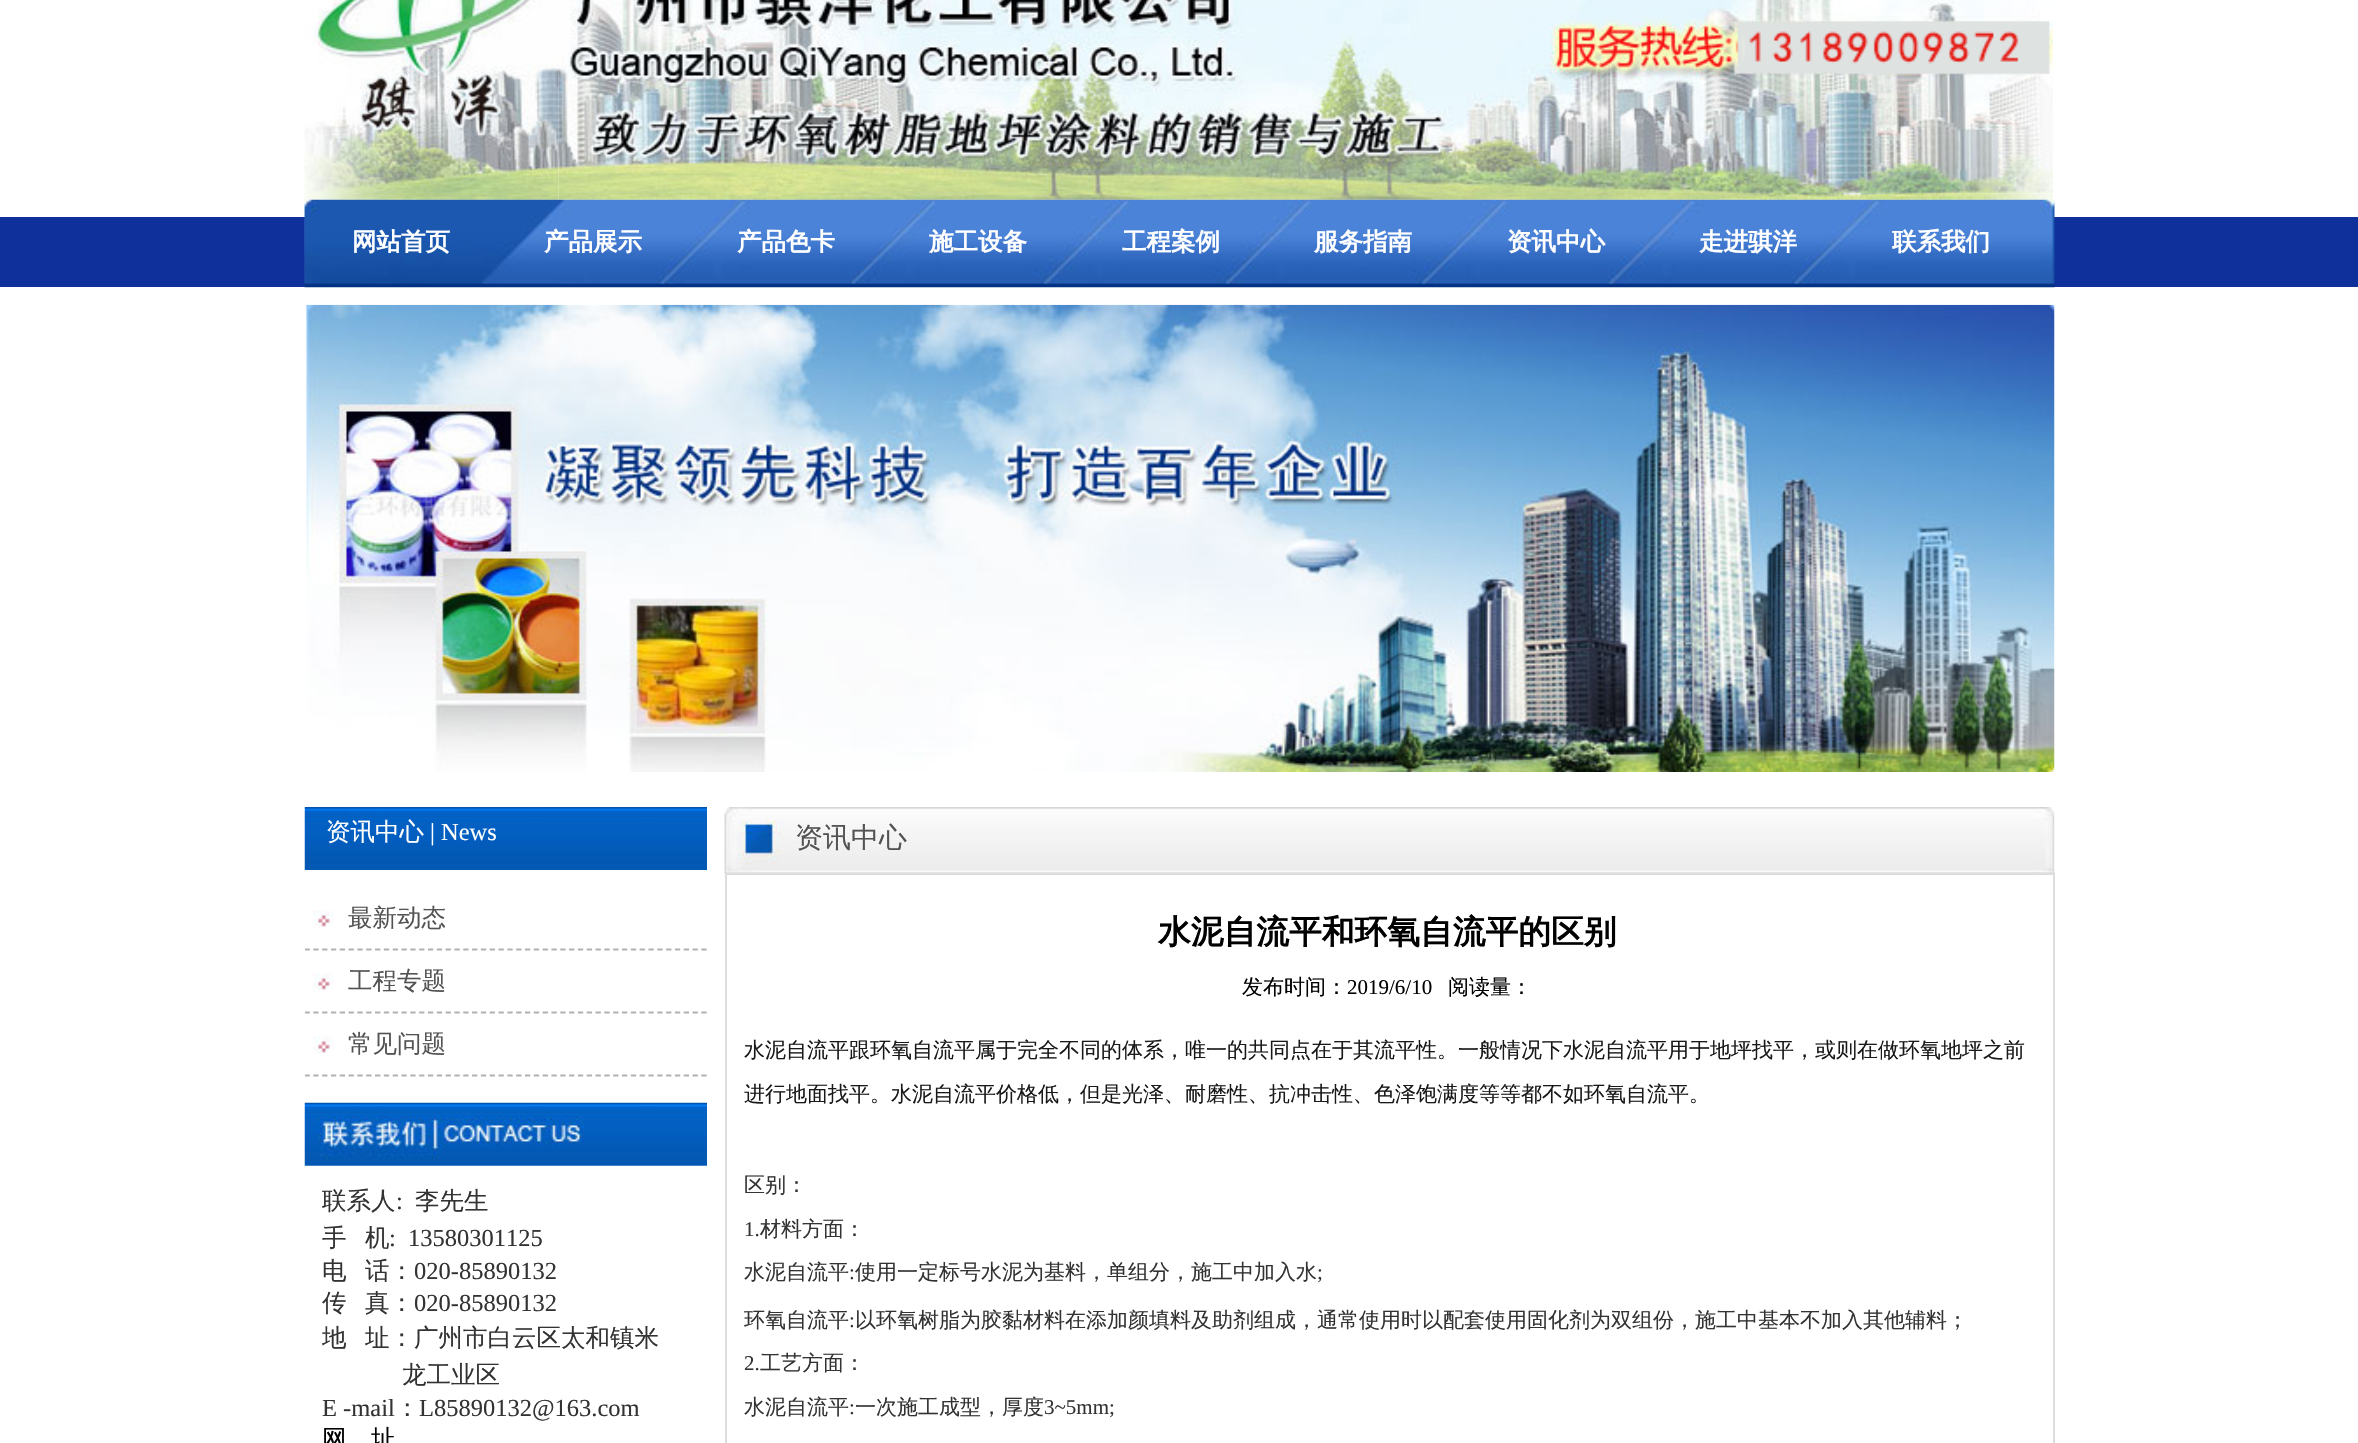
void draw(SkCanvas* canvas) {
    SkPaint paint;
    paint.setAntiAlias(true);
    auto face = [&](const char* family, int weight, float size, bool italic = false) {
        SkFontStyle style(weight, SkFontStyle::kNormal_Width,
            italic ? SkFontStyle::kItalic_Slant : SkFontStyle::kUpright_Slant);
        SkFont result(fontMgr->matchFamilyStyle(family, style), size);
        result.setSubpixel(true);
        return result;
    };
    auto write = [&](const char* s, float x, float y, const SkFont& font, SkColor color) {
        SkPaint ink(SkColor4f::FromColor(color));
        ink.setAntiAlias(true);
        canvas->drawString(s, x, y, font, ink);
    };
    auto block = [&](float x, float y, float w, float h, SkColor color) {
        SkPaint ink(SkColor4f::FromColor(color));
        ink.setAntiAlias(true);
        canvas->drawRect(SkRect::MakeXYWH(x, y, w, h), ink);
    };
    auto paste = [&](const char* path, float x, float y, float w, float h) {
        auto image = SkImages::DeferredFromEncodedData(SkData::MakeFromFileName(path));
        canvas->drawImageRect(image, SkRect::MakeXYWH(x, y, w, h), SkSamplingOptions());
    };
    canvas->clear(SK_ColorWHITE);
    paste("pic1.png", 304, 0, 255, 200);
    paste("pic2.png", 558, 0, 1495, 200);
    block(0, 217, 2358, 70, SkColorSetRGB(15, 48, 155));
    paste("pic3.png", 304, 199, 1751, 89);
    auto kFont1 = face("WenQuanYi Zen Hei", 700, 24.5f);
    write("网站首页", 352, 250, kFont1, SK_ColorWHITE);
    write("产品展示", 544, 250, kFont1, SK_ColorWHITE);
    write("产品色卡", 737, 250, kFont1, SK_ColorWHITE);
    write("施工设备", 929, 250, kFont1, SK_ColorWHITE);
    write("工程案例", 1122, 250, kFont1, SK_ColorWHITE);
    write("服务指南", 1314, 250, kFont1, SK_ColorWHITE);
    write("资讯中心", 1507, 250, kFont1, SK_ColorWHITE);
    write("走进骐洋", 1699, 250, kFont1, SK_ColorWHITE);
    write("联系我们", 1892, 250, kFont1, SK_ColorWHITE);
    paste("pic4.png", 306, 304, 1749, 468);
    paste("pic5.png", 304, 807, 403, 63);
    auto kFont2 = face("WenQuanYi Zen Hei", 500, 24.5f);
    write("资讯中心", 326, 840, kFont2, SK_ColorWHITE);
    auto kFont3 = face("Liberation Serif", 400, 24.5f);
    write("| News", 430, 840, kFont3, SK_ColorWHITE);
    paste("pic6.png", 313, 910, 21, 18);
    canvas->save();
    canvas->clipRect(SkRect::MakeXYWH(305, 807, 1750, 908));
    paint.setStyle(SkPaint::kStroke_Style);
    paint.setStrokeWidth(1.8f);
    paint.setColor(SkColorSetRGB(177, 177, 177));
    paint.setPathEffect(SkDashPathEffect::Make({{5.25f, 3.57f}}, 0));
    canvas->drawPath(SkPathBuilder().moveTo(304.5f, 949.5f).lineTo(707, 949.5f).detach(), paint);
    paint.setPathEffect(nullptr);
    canvas->restore();
    write("最新动态", 348, 926, kFont2, SkColorSetRGB(83, 83, 83));
    paste("pic6.png", 313, 973, 21, 18);
    canvas->save();
    canvas->clipRect(SkRect::MakeXYWH(305, 807, 1750, 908));
    paint.setPathEffect(SkDashPathEffect::Make({{5.25f, 3.57f}}, 0));
    canvas->drawPath(SkPathBuilder().moveTo(304.5f, 1012.5f).lineTo(707, 1012.5f).detach(), paint);
    paint.setPathEffect(nullptr);
    canvas->restore();
    write("工程专题", 348, 989, kFont2, SkColorSetRGB(83, 83, 83));
    paste("pic6.png", 313, 1036, 21, 18);
    canvas->save();
    canvas->clipRect(SkRect::MakeXYWH(305, 807, 1750, 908));
    paint.setPathEffect(SkDashPathEffect::Make({{5.25f, 3.57f}}, 0));
    canvas->drawPath(SkPathBuilder().moveTo(304.5f, 1075.5f).lineTo(707, 1075.5f).detach(), paint);
    paint.setPathEffect(nullptr);
    canvas->restore();
    write("常见问题", 348, 1052, kFont2, SkColorSetRGB(83, 83, 83));
    paste("pic7.png", 304, 1102, 403, 64);
    write("联系人", 322, 1209, kFont2, SkColorSetRGB(51, 51, 51));
    write(":", 396, 1209, kFont3, SkColorSetRGB(51, 51, 51));
    write("李先生", 415, 1209, kFont2, SkColorSetRGB(51, 51, 51));
    write("手", 322, 1246, kFont2, SkColorSetRGB(51, 51, 51));
    write("机", 365, 1246, kFont2, SkColorSetRGB(51, 51, 51));
    write(":  13580301125", 389, 1246, kFont3, SkColorSetRGB(51, 51, 51));
    write("电", 322, 1279, kFont2, SkColorSetRGB(51, 51, 51));
    write("话：", 365, 1279, kFont2, SkColorSetRGB(51, 51, 51));
    write("020-85890132", 414, 1279, kFont3, SkColorSetRGB(51, 51, 51));
    write("传", 322, 1311, kFont2, SkColorSetRGB(51, 51, 51));
    write("真：", 365, 1311, kFont2, SkColorSetRGB(51, 51, 51));
    write("020-85890132", 414, 1311, kFont3, SkColorSetRGB(51, 51, 51));
    write("地", 322, 1346, kFont2, SkColorSetRGB(51, 51, 51));
    write("址：广州市白云区太和镇米", 365, 1346, kFont2, SkColorSetRGB(51, 51, 51));
    write("龙工业区", 402, 1383, kFont2, SkColorSetRGB(51, 51, 51));
    write("E -mail", 322, 1416, kFont3, SkColorSetRGB(51, 51, 51));
    write("：", 395, 1416, kFont2, SkColorSetRGB(51, 51, 51));
    write("L85890132@163.com", 419, 1416, kFont3, SkColorSetRGB(51, 51, 51));
    write("网", 322, 1447, kFont2, SK_ColorBLACK);
    write("址", 371, 1447, kFont2, SK_ColorBLACK);
    paste("pic8.png", 724, 807, 1331, 67);
    auto kFont4 = face("WenQuanYi Zen Hei", 500, 28);
    write("资讯中心", 795, 847, kFont4, SkColorSetRGB(83, 83, 83));
    paint.setStrokeWidth(2);
    paint.setColor(SkColorSetRGB(221, 221, 221));
    canvas->drawRect(SkRect::MakeXYWH(726, 874, 1328, 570), paint);
    auto kFont5 = face("WenQuanYi Zen Hei", 700, 32.75f);
    write("水泥自流平和环氧自流平的区别", 1158, 943, kFont5, SK_ColorBLACK);
    auto kFont6 = face("WenQuanYi Zen Hei", 500, 21);
    write("发布时间：", 1242, 994, kFont6, SK_ColorBLACK);
    auto kFont7 = face("Liberation Serif", 400, 21);
    write("2019/6/10", 1347, 994, kFont7, SK_ColorBLACK);
    write("阅读量：", 1448, 994, kFont6, SK_ColorBLACK);
    write("水泥自流平跟环氧自流平属于完全不同的体系，唯一的共同点在于其流平性。一般情况下水泥自流平用于地坪找平，或则在做环氧地坪之前", 744, 1057, kFont6, SkColorSetRGB(25, 25, 25));
    write("进行地面找平。水泥自流平价格低，但是光泽、耐磨性、抗冲击性、色泽饱满度等等都不如环氧自流平。", 744, 1101, kFont6, SkColorSetRGB(25, 25, 25));
    write("区别：", 744, 1192, kFont6, SkColorSetRGB(51, 51, 51));
    write("1.", 744, 1236, kFont7, SkColorSetRGB(51, 51, 51));
    write("材料方面：", 760, 1236, kFont6, SkColorSetRGB(51, 51, 51));
    write("水泥自流平", 744, 1279, kFont6, SkColorSetRGB(51, 51, 51));
    write(":", 849, 1279, kFont7, SkColorSetRGB(51, 51, 51));
    write("使用一定标号水泥为基料，单组分，施工中加入水", 855, 1279, kFont6, SkColorSetRGB(51, 51, 51));
    write(";", 1317, 1279, kFont7, SkColorSetRGB(51, 51, 51));
    write("环氧自流平", 744, 1327, kFont6, SkColorSetRGB(51, 51, 51));
    write(":", 849, 1327, kFont7, SkColorSetRGB(51, 51, 51));
    write("以环氧树脂为胶黏材料在添加颜填料及助剂组成，通常使用时以配套使用固化剂为双组份，施工中基本不加入其他辅料；", 855, 1327, kFont6, SkColorSetRGB(51, 51, 51));
    write("2.", 744, 1370, kFont7, SkColorSetRGB(51, 51, 51));
    write("工艺方面：", 760, 1370, kFont6, SkColorSetRGB(51, 51, 51));
    write("水泥自流平", 744, 1414, kFont6, SkColorSetRGB(51, 51, 51));
    write(":", 849, 1414, kFont7, SkColorSetRGB(51, 51, 51));
    write("一次施工成型，厚度", 855, 1414, kFont6, SkColorSetRGB(51, 51, 51));
    write("3~5mm;", 1044, 1414, kFont7, SkColorSetRGB(51, 51, 51));
}
